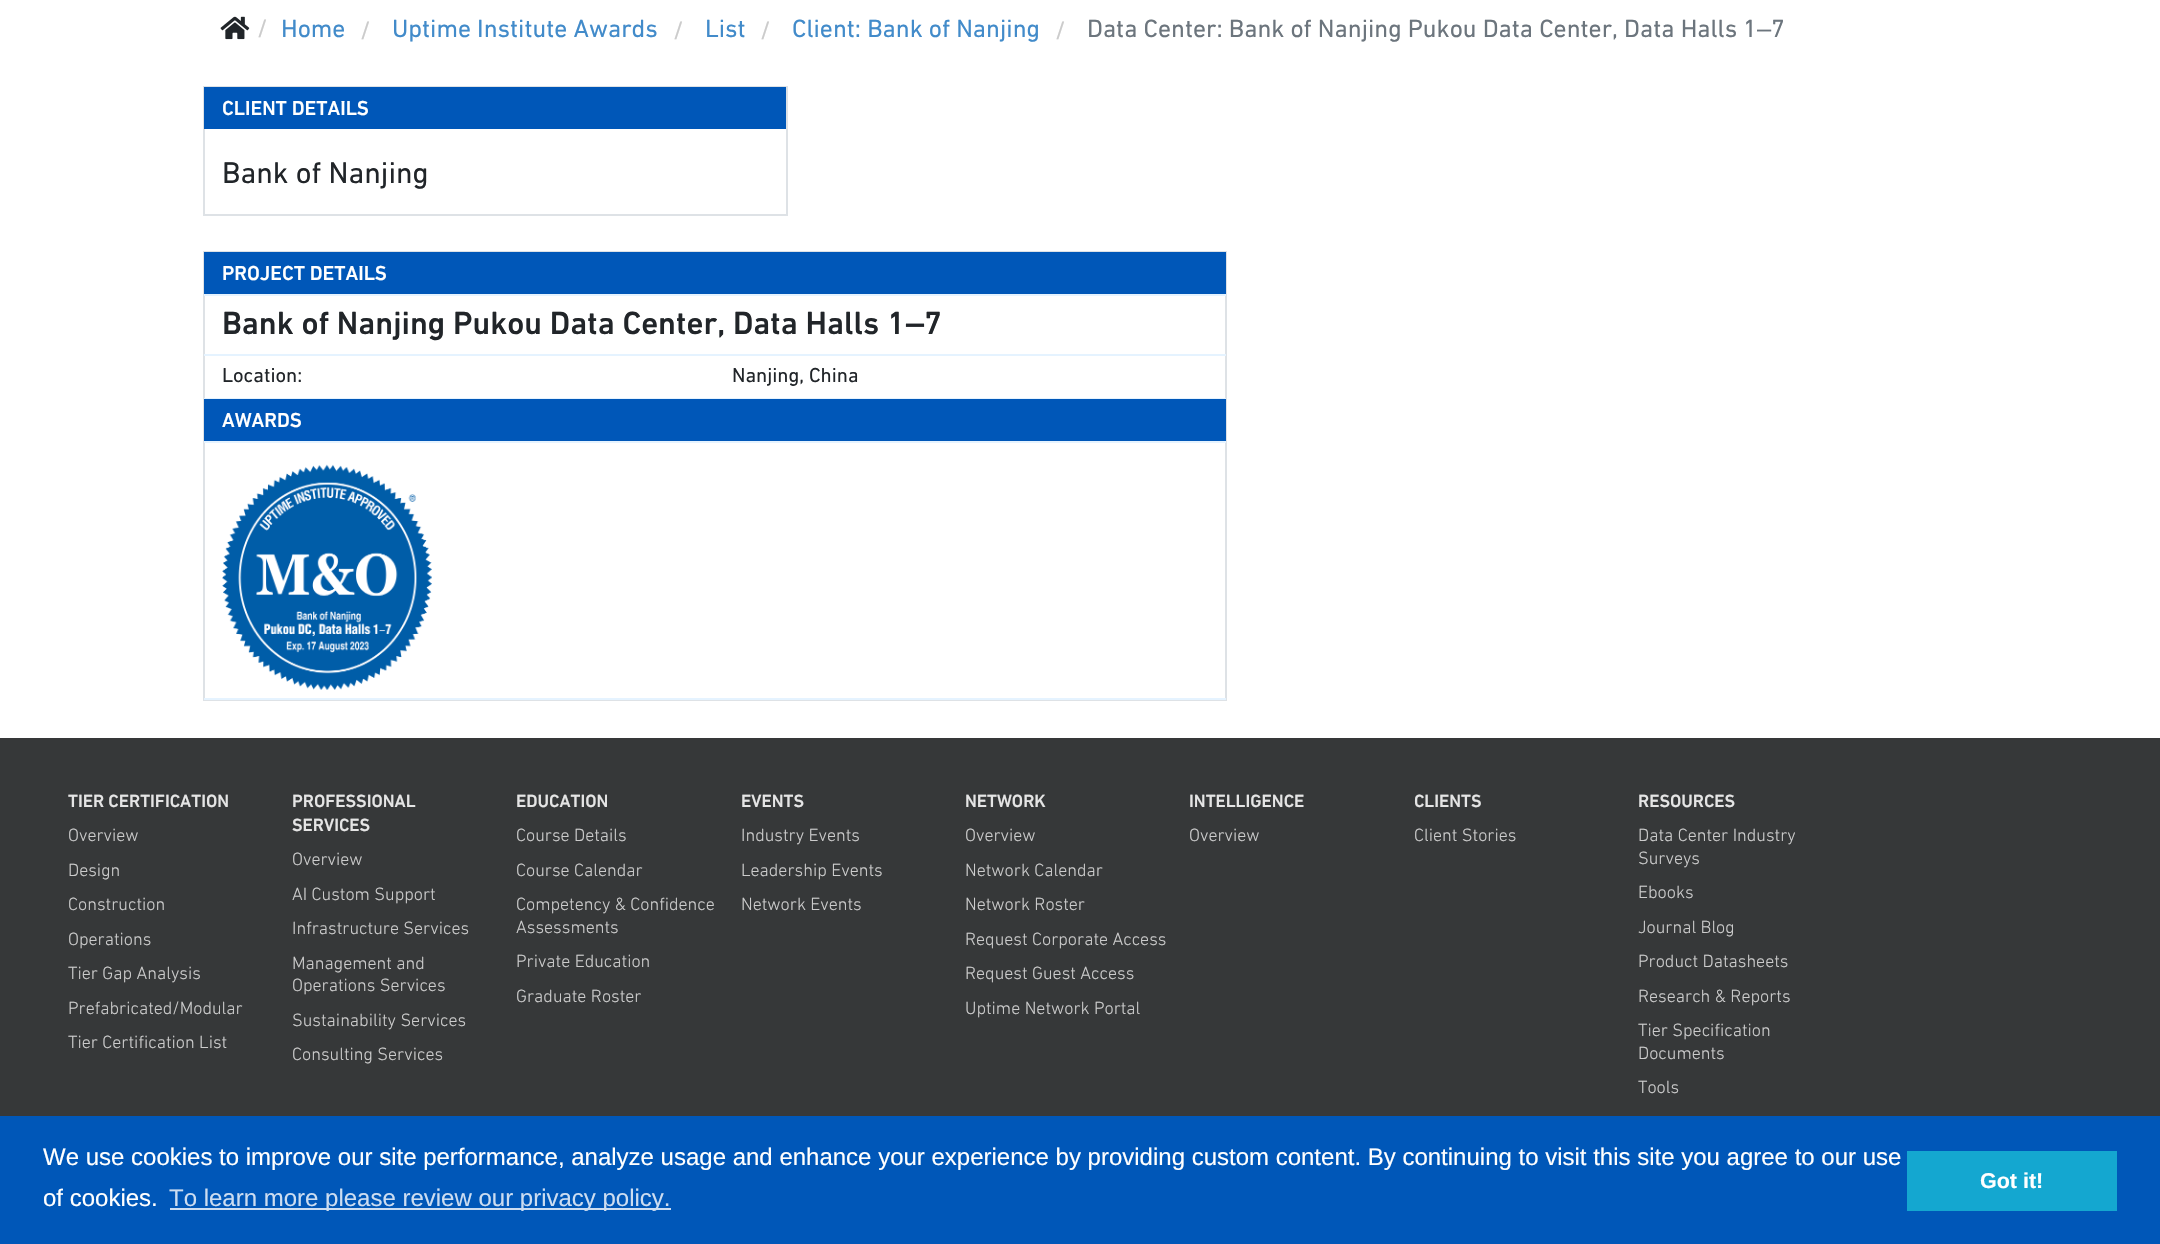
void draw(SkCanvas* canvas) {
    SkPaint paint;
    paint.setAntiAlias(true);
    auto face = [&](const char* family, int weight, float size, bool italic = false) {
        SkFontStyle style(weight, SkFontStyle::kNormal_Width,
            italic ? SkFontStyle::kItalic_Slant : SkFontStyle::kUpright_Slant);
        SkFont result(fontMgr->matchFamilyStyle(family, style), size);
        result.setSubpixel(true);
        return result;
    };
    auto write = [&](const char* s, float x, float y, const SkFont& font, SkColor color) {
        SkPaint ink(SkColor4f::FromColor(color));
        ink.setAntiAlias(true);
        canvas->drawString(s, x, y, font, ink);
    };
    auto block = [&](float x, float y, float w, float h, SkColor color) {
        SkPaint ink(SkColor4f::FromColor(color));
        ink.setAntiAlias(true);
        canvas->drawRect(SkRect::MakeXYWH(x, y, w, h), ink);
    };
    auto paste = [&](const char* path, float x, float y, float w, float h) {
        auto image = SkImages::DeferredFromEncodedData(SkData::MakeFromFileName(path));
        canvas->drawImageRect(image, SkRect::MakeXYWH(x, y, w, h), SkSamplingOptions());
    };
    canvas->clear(SK_ColorWHITE);
    paste("pic1.png", 220, 16, 30, 24);
    auto kFont1 = face("DIN Next", 400, 25.5f);
    write("/", 257, 37, kFont1, SkColorSetRGB(204, 204, 204));
    write("Home", 281, 37, kFont1, SkColorSetRGB(66, 139, 202));
    write("/", 360, 39, kFont1, SkColorSetRGB(204, 204, 204));
    write("Uptime Institute Awards", 392, 37, kFont1, SkColorSetRGB(66, 139, 202));
    write("/", 673, 39, kFont1, SkColorSetRGB(204, 204, 204));
    write("List", 705, 37, kFont1, SkColorSetRGB(66, 139, 202));
    write("/", 760, 39, kFont1, SkColorSetRGB(204, 204, 204));
    write("Client: Bank of Nanjing", 792, 37, kFont1, SkColorSetRGB(66, 139, 202));
    write("/", 1055, 39, kFont1, SkColorSetRGB(204, 204, 204));
    write("Data Center: Bank of Nanjing Pukou Data Center, Data Halls 1", 1087, 37, kFont1, SkColorSetRGB(108, 117, 125));
    auto kFont2 = face("Liberation Sans", 400, 25.5f);
    write("‒", 1757, 37, kFont2, SkColorSetRGB(108, 117, 125));
    write("7", 1771, 37, kFont1, SkColorSetRGB(108, 117, 125));
    paint.setStyle(SkPaint::kStroke_Style);
    paint.setStrokeWidth(2);
    paint.setColor(SkColorSetRGB(222, 226, 230));
    canvas->drawRect(SkRect::MakeXYWH(204, 87, 583, 128), paint);
    block(204, 87, 582, 42, SkColorSetRGB(0, 87, 184));
    auto kFont3 = face("DIN Next", 500, 20.5f);
    write("CLIENT DETAILS", 222, 115, kFont3, SK_ColorWHITE);
    auto kFont4 = face("DIN Next", 400, 30.5f);
    write("Bank of Nanjing", 222, 183, kFont4, SkColorSetRGB(33, 37, 41));
    canvas->drawRect(SkRect::MakeXYWH(204, 252, 1022, 448), paint);
    block(204, 252, 1022, 42, SkColorSetRGB(0, 87, 184));
    block(204, 294, 1022, 2, SkColorSetRGB(229, 243, 255));
    write("PROJECT DETAILS", 222, 280, kFont3, SK_ColorWHITE);
    block(204, 354, 1022, 2, SkColorSetRGB(229, 243, 255));
    auto kFont5 = face("DIN Next", 500, 32.6f);
    write("Bank of Nanjing Pukou Data Center, Data Halls 1", 222, 334, kFont5, SkColorSetRGB(33, 37, 41));
    auto kFont6 = face("Liberation Sans", 700, 32.6f);
    write("‒", 906, 334, kFont6, SkColorSetRGB(33, 37, 41));
    write("7", 924, 334, kFont5, SkColorSetRGB(33, 37, 41));
    block(204, 398, 1022, 1, SkColorSetRGB(229, 243, 255));
    auto kFont7 = face("DIN Next", 400, 20.5f);
    write("Location:", 222, 382, kFont7, SkColorSetRGB(33, 37, 41));
    write("Nanjing, China", 732, 382, kFont7, SkColorSetRGB(33, 37, 41));
    block(204, 399, 1022, 42, SkColorSetRGB(0, 87, 184));
    block(204, 441, 1022, 2, SkColorSetRGB(229, 243, 255));
    write("AWARDS", 222, 427, kFont3, SK_ColorWHITE);
    block(204, 698, 1022, 2, SkColorSetRGB(229, 243, 255));
    paste("pic2.png", 222, 464, 210, 226);
    block(0, 738, 2160, 378, SkColorSetRGB(54, 56, 57));
    auto kFont8 = face("DIN Next", 500, 18);
    write("TIER CERTIFICATION", 68, 807, kFont8, SkColorSetRGB(229, 229, 229));
    auto kFont9 = face("DIN Next", 300, 18);
    write("Overview", 68, 841, kFont9, SkColorSetRGB(204, 204, 204));
    write("Design", 68, 876, kFont9, SkColorSetRGB(204, 204, 204));
    write("Construction", 68, 910, kFont9, SkColorSetRGB(204, 204, 204));
    write("Operations", 68, 945, kFont9, SkColorSetRGB(204, 204, 204));
    write("Tier Gap Analysis", 68, 979, kFont9, SkColorSetRGB(204, 204, 204));
    write("Prefabricated/Modular", 68, 1014, kFont9, SkColorSetRGB(204, 204, 204));
    write("Tier Certification List", 68, 1048, kFont9, SkColorSetRGB(204, 204, 204));
    write("PROFESSIONAL", 292, 807, kFont8, SkColorSetRGB(229, 229, 229));
    write("SERVICES", 292, 831, kFont8, SkColorSetRGB(229, 229, 229));
    write("Overview", 292, 865, kFont9, SkColorSetRGB(204, 204, 204));
    write("AI Custom Support", 292, 900, kFont9, SkColorSetRGB(204, 204, 204));
    write("Infrastructure Services", 292, 934, kFont9, SkColorSetRGB(204, 204, 204));
    write("Management and", 292, 969, kFont9, SkColorSetRGB(204, 204, 204));
    write("Operations Services", 292, 991, kFont9, SkColorSetRGB(204, 204, 204));
    write("Sustainability Services", 292, 1026, kFont9, SkColorSetRGB(204, 204, 204));
    write("Consulting Services", 292, 1060, kFont9, SkColorSetRGB(204, 204, 204));
    write("EDUCATION", 516, 807, kFont8, SkColorSetRGB(229, 229, 229));
    write("Course Details", 516, 841, kFont9, SkColorSetRGB(204, 204, 204));
    write("Course Calendar", 516, 876, kFont9, SkColorSetRGB(204, 204, 204));
    write("Competency & Confidence", 516, 910, kFont9, SkColorSetRGB(204, 204, 204));
    write("Assessments", 516, 933, kFont9, SkColorSetRGB(204, 204, 204));
    write("Private Education", 516, 967, kFont9, SkColorSetRGB(204, 204, 204));
    write("Graduate Roster", 516, 1002, kFont9, SkColorSetRGB(204, 204, 204));
    write("EVENTS", 741, 807, kFont8, SkColorSetRGB(229, 229, 229));
    write("Industry Events", 741, 841, kFont9, SkColorSetRGB(204, 204, 204));
    write("Leadership Events", 741, 876, kFont9, SkColorSetRGB(204, 204, 204));
    write("Network Events", 741, 910, kFont9, SkColorSetRGB(204, 204, 204));
    write("NETWORK", 965, 807, kFont8, SkColorSetRGB(229, 229, 229));
    write("Overview", 965, 841, kFont9, SkColorSetRGB(204, 204, 204));
    write("Network Calendar", 965, 876, kFont9, SkColorSetRGB(204, 204, 204));
    write("Network Roster", 965, 910, kFont9, SkColorSetRGB(204, 204, 204));
    write("Request Corporate Access", 965, 945, kFont9, SkColorSetRGB(204, 204, 204));
    write("Request Guest Access", 965, 979, kFont9, SkColorSetRGB(204, 204, 204));
    write("Uptime Network Portal", 965, 1014, kFont9, SkColorSetRGB(204, 204, 204));
    write("INTELLIGENCE", 1189, 807, kFont8, SkColorSetRGB(229, 229, 229));
    write("Overview", 1189, 841, kFont9, SkColorSetRGB(204, 204, 204));
    write("CLIENTS", 1414, 807, kFont8, SkColorSetRGB(229, 229, 229));
    write("Client Stories", 1414, 841, kFont9, SkColorSetRGB(204, 204, 204));
    write("RESOURCES", 1638, 807, kFont8, SkColorSetRGB(229, 229, 229));
    write("Data Center Industry", 1638, 841, kFont9, SkColorSetRGB(204, 204, 204));
    write("Surveys", 1638, 864, kFont9, SkColorSetRGB(204, 204, 204));
    write("Ebooks", 1638, 898, kFont9, SkColorSetRGB(204, 204, 204));
    write("Journal Blog", 1638, 933, kFont9, SkColorSetRGB(204, 204, 204));
    write("Product Datasheets", 1638, 967, kFont9, SkColorSetRGB(204, 204, 204));
    write("Research & Reports", 1638, 1002, kFont9, SkColorSetRGB(204, 204, 204));
    write("Tier Specification", 1638, 1036, kFont9, SkColorSetRGB(204, 204, 204));
    write("Documents", 1638, 1059, kFont9, SkColorSetRGB(204, 204, 204));
    write("Tools", 1638, 1093, kFont9, SkColorSetRGB(204, 204, 204));
    block(0, 1116, 2160, 128, SkColorSetRGB(0, 87, 184));
    auto kFont10 = face("Liberation Sans", 400, 24);
    write("We use cookies to improve our site performance, analyze usage and enhance your experience by providing custom content. By continuing to visit this site you agree to our use", 43, 1165, kFont10, SK_ColorWHITE);
    write("of cookies.", 43, 1206, kFont10, SK_ColorWHITE);
    block(170, 1208, 501, 2, SkColorSetRGB(204, 221, 241));
    write("To learn more please review our privacy policy.", 169, 1206, kFont10, SkColorSetRGB(204, 221, 241));
    block(1907, 1151, 210, 60, SkColorSetRGB(20, 167, 208));
    auto kFont11 = face("Liberation Sans", 700, 21.5f);
    write("Got it!", 1980, 1188, kFont11, SK_ColorWHITE);
}
